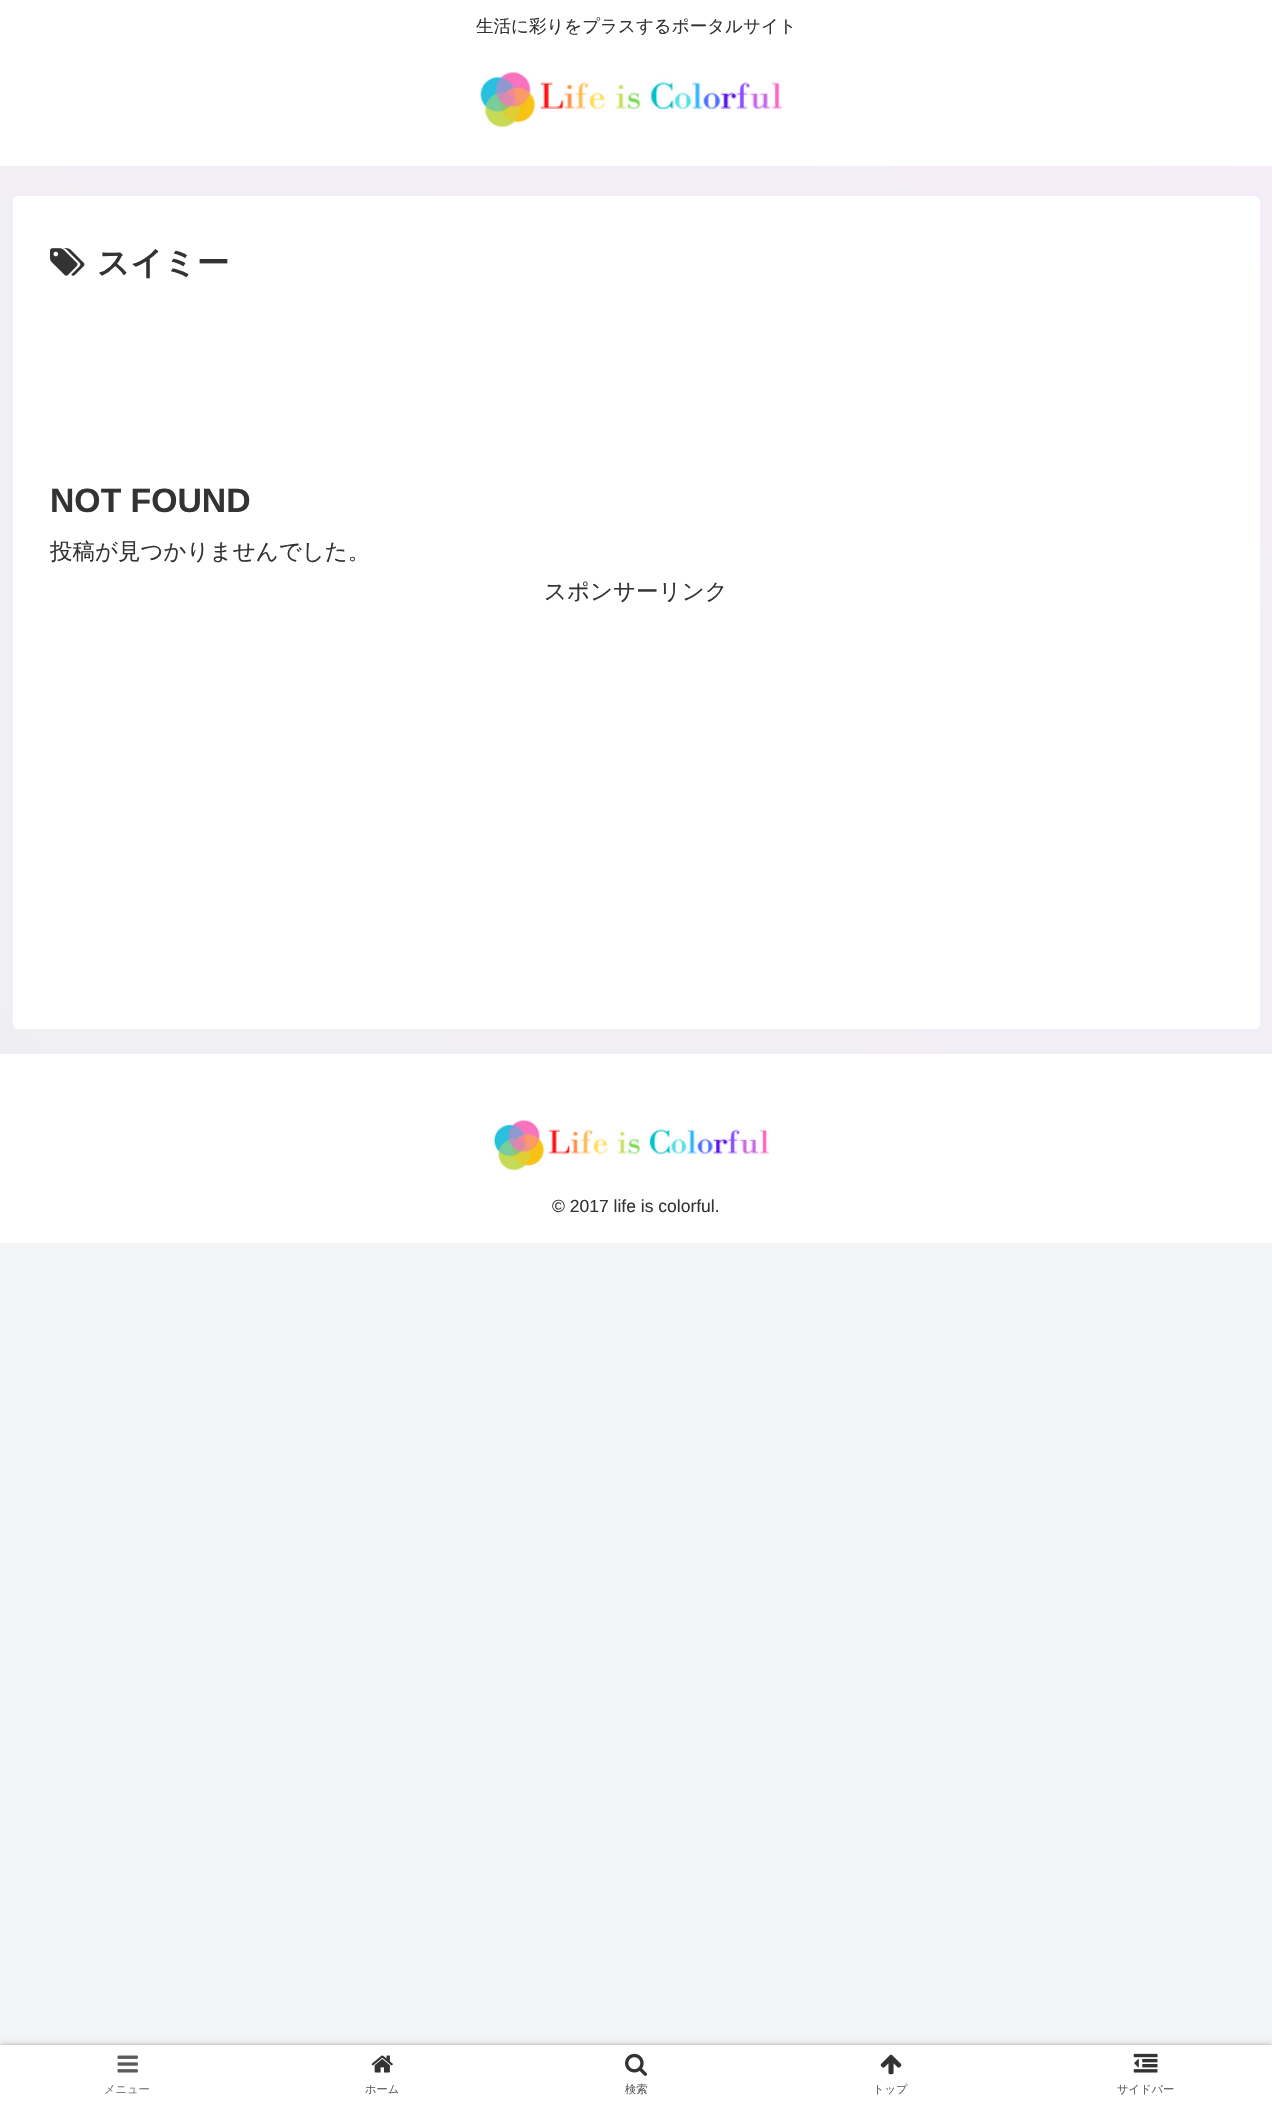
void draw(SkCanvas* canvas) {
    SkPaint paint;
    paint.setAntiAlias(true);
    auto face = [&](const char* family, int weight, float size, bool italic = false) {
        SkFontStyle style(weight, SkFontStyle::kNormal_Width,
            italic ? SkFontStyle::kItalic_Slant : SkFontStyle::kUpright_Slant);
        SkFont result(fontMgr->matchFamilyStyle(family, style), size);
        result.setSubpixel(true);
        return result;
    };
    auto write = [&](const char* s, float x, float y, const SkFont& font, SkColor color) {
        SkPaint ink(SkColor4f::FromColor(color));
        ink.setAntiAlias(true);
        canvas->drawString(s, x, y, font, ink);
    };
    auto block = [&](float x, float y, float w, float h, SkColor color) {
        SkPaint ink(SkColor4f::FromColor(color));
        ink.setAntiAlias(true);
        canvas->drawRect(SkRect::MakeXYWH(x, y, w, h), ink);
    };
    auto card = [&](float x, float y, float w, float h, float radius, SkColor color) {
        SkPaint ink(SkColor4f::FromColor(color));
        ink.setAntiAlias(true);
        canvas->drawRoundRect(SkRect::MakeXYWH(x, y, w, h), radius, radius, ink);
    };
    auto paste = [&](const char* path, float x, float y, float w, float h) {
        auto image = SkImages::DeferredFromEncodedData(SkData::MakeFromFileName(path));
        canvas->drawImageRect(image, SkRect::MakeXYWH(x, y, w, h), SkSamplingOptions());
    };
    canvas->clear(SkColorSetRGB(244, 245, 247));
    block(0, 0, 1272, 166, SK_ColorWHITE);
    auto kFont1 = face("WenQuanYi Zen Hei", 500, 17.5f);
    write("生活に彩りをプラスするポータルサイト", 476, 32, kFont1, SkColorSetRGB(51, 51, 51));
    paste("pic1.png", 480, 71, 303, 57);
    {
        const SkColor colors[] = {SkColorSetRGB(245, 237, 247), SkColorSetRGB(229, 243, 235), SkColorSetRGB(233, 234, 248), SkColorSetRGB(245, 246, 234)};
        const float stops[] = {0, 0.33f, 0.67f, 1};
        const SkPoint ends[] = {{1213, -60}, {-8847, 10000}};
        paint.setShader(SkGradientShader::MakeLinear(ends, colors, stops, 4, SkTileMode::kClamp));
        paint.setAlpha(255);
    }
    canvas->drawRect(SkRect::MakeXYWH(0, 166, 1272, 888), paint);
    card(13, 196, 1247, 833, 5, SK_ColorWHITE);
    paste("pic2.png", 50, 248, 35, 28);
    auto kFont2 = face("WenQuanYi Zen Hei", 700, 32.5f);
    write("スイミー", 97, 274, kFont2, SkColorSetRGB(51, 51, 51));
    auto kFont3 = face("Liberation Sans", 700, 33.75f);
    write("NOT FOUND", 50, 512, kFont3, SkColorSetRGB(51, 51, 51));
    auto kFont4 = face("WenQuanYi Zen Hei", 500, 22.5f);
    write("投稿が見つかりませんでした。", 50, 559, kFont4, SkColorSetRGB(51, 51, 51));
    write("スポンサーリンク", 544, 599, kFont4, SkColorSetRGB(51, 51, 51));
    block(0, 1054, 1272, 189, SK_ColorWHITE);
    paste("pic3.png", 493, 1120, 277, 51);
    auto kFont5 = face("Liberation Sans", 400, 17.5f);
    write("© 2017 life is colorful.", 552, 1212, kFont5, SkColorSetRGB(51, 51, 51));
    paint.setShader(nullptr);
    paint.setColor(SkColorSetRGB(169, 169, 169));
    paint.setMaskFilter(SkMaskFilter::MakeBlur(kNormal_SkBlurStyle, 3));
    canvas->drawRect(SkRect::MakeXYWH(0, 2045, 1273, 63), paint);
    paint.setMaskFilter(nullptr);
    block(0, 2045, 1272, 62, SK_ColorWHITE);
    paste("pic4.png", 117, 2055, 21, 18);
    auto kFont6 = face("WenQuanYi Zen Hei", 500, 11.25f);
    write("メニュー", 104, 2093, kFont6, SkColorSetRGB(124, 124, 124));
    paste("pic5.png", 371, 2055, 22, 18);
    write("ホーム", 365, 2093, kFont6, SkColorSetRGB(92, 92, 92));
    paste("pic6.png", 625, 2053, 22, 23);
    write("検索", 625, 2093, kFont6, SkColorSetRGB(92, 92, 92));
    paste("pic7.png", 880, 2054, 22, 21);
    write("トップ", 873, 2093, kFont6, SkColorSetRGB(92, 92, 92));
    paste("pic8.png", 1133, 2053, 25, 20);
    write("サイドバー", 1117, 2093, kFont6, SkColorSetRGB(92, 92, 92));
}
